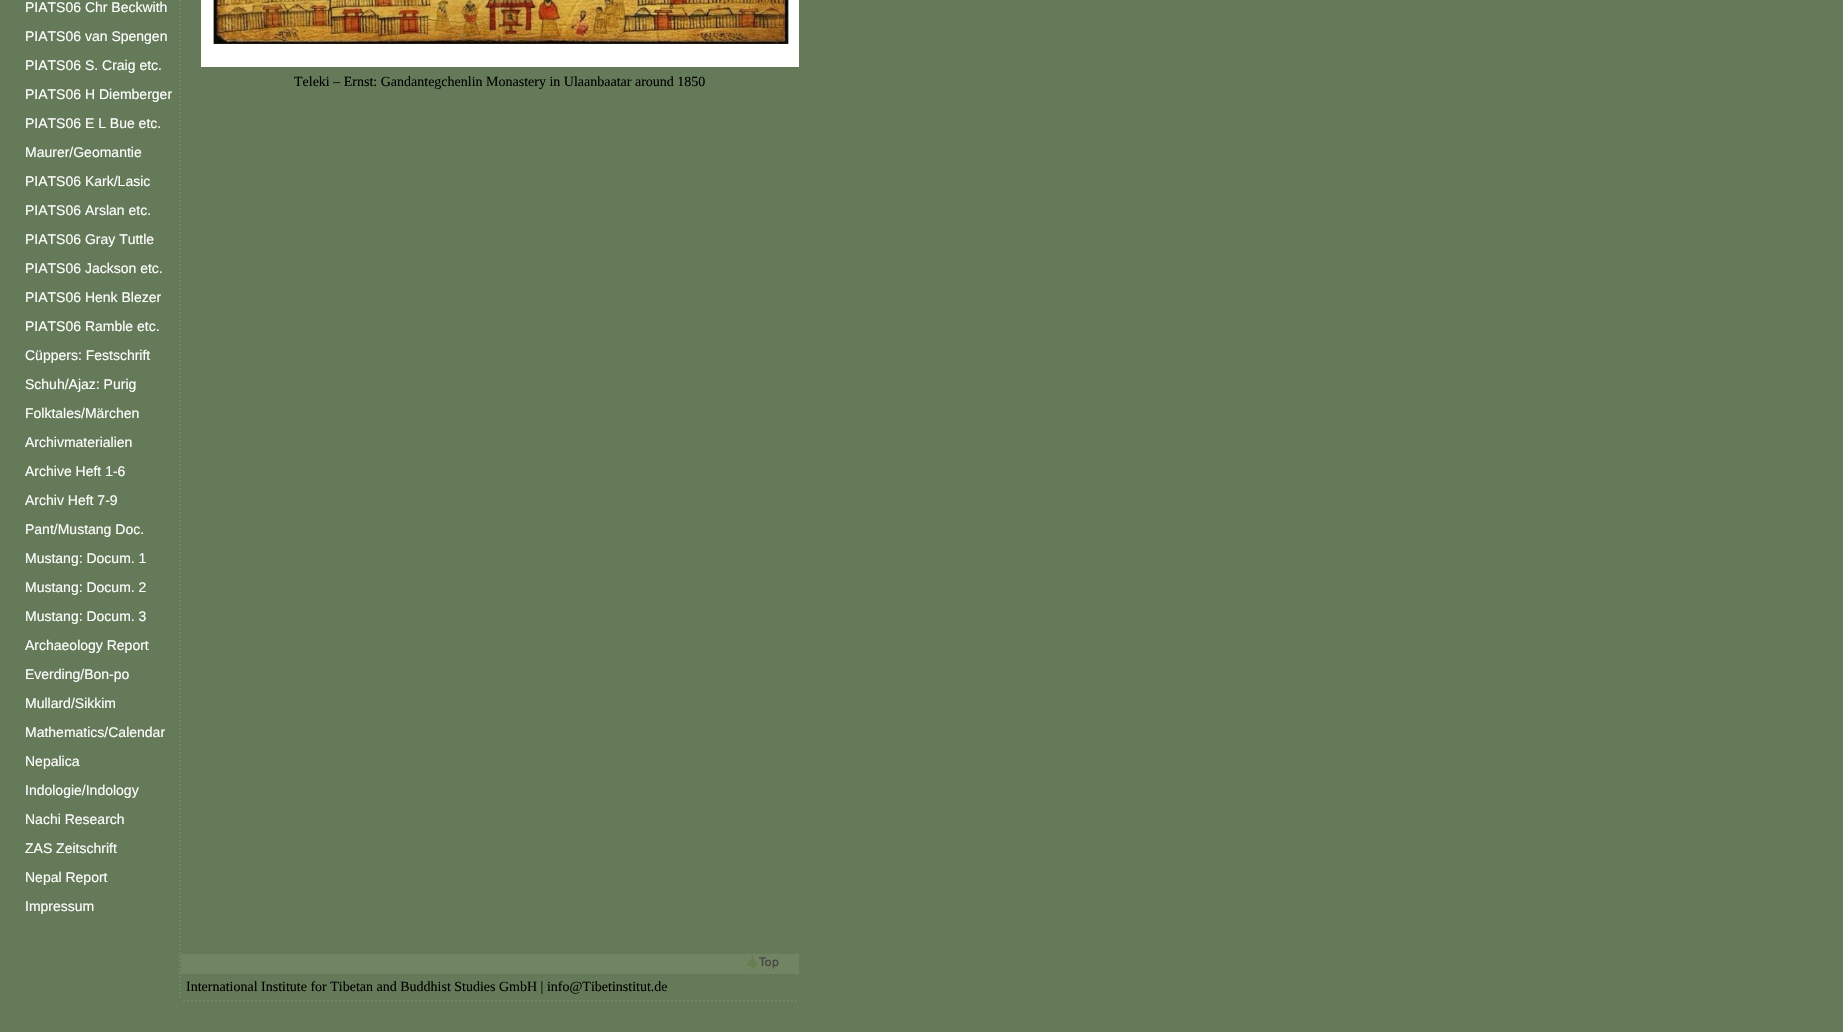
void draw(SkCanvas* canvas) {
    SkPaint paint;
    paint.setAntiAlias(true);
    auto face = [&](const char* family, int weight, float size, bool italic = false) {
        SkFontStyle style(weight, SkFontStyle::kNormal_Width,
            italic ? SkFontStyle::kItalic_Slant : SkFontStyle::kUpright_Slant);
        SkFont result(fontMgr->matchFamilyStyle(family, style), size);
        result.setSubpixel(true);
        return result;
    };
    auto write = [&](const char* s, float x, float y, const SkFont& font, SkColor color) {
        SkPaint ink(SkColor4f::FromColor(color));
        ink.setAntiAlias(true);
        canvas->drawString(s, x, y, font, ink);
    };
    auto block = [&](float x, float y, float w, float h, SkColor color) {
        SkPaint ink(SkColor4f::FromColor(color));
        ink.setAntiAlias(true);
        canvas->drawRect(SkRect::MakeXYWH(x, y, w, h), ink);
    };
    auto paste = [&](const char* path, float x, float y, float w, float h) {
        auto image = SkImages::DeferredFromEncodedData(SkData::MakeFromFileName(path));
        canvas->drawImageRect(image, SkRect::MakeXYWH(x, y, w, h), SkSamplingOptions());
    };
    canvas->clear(SkColorSetRGB(101, 122, 89));
    paste("pic1.png", 179, 0, 2, 934);
    auto kFont1 = face("Liberation Sans", 400, 14);
    write("PIATS06 Chr Beckwith", 25, 12, kFont1, SK_ColorWHITE);
    write("PIATS06 van Spengen", 25, 41, kFont1, SK_ColorWHITE);
    write("PIATS06 S. Craig etc.", 25, 70, kFont1, SK_ColorWHITE);
    write("PIATS06 H Diemberger", 25, 99, kFont1, SK_ColorWHITE);
    write("PIATS06 E L Bue etc.", 25, 128, kFont1, SK_ColorWHITE);
    write("Maurer/Geomantie", 25, 157, kFont1, SK_ColorWHITE);
    write("PIATS06 Kark/Lasic", 25, 186, kFont1, SK_ColorWHITE);
    write("PIATS06 Arslan etc.", 25, 215, kFont1, SK_ColorWHITE);
    write("PIATS06 Gray Tuttle", 25, 244, kFont1, SK_ColorWHITE);
    write("PIATS06 Jackson etc.", 25, 273, kFont1, SK_ColorWHITE);
    write("PIATS06 Henk Blezer", 25, 302, kFont1, SK_ColorWHITE);
    write("PIATS06 Ramble etc.", 25, 331, kFont1, SK_ColorWHITE);
    write("Cüppers: Festschrift", 25, 360, kFont1, SK_ColorWHITE);
    write("Schuh/Ajaz: Purig", 25, 389, kFont1, SK_ColorWHITE);
    write("Folktales/Märchen", 25, 418, kFont1, SK_ColorWHITE);
    write("Archivmaterialien", 25, 447, kFont1, SK_ColorWHITE);
    write("Archive Heft 1-6", 25, 476, kFont1, SK_ColorWHITE);
    write("Archiv Heft 7-9", 25, 505, kFont1, SK_ColorWHITE);
    write("Pant/Mustang Doc.", 25, 534, kFont1, SK_ColorWHITE);
    write("Mustang: Docum. 1", 25, 563, kFont1, SK_ColorWHITE);
    write("Mustang: Docum. 2", 25, 592, kFont1, SK_ColorWHITE);
    write("Mustang: Docum. 3", 25, 621, kFont1, SK_ColorWHITE);
    write("Archaeology Report", 25, 650, kFont1, SK_ColorWHITE);
    write("Everding/Bon-po", 25, 679, kFont1, SK_ColorWHITE);
    write("Mullard/Sikkim", 25, 708, kFont1, SK_ColorWHITE);
    write("Mathematics/Calendar", 25, 737, kFont1, SK_ColorWHITE);
    write("Nepalica", 25, 766, kFont1, SK_ColorWHITE);
    write("Indologie/Indology", 25, 795, kFont1, SK_ColorWHITE);
    write("Nachi Research", 25, 824, kFont1, SK_ColorWHITE);
    write("ZAS Zeitschrift", 25, 853, kFont1, SK_ColorWHITE);
    write("Nepal Report", 25, 882, kFont1, SK_ColorWHITE);
    write("Impressum", 25, 911, kFont1, SK_ColorWHITE);
    paste("pic2.png", 201, 0, 598, 67);
    auto kFont2 = face("Liberation Serif", 400, 14);
    write("Teleki – Ernst: Gandantegchenlin Monastery in Ulaanbaatar around 1850", 294, 86, kFont2, SK_ColorBLACK);
    paste("pic3.png", 179, 936, 2, 62);
    block(181, 954, 618, 20, SkColorSetRGB(114, 133, 99));
    paste("pic4.png", 746, 956, 33, 13);
    write("International Institute for Tibetan and Buddhist Studies GmbH | info@Tibetinstitut.de", 186, 991, kFont2, SK_ColorBLACK);
    paste("pic5.png", 183, 1000, 614, 2);
}
